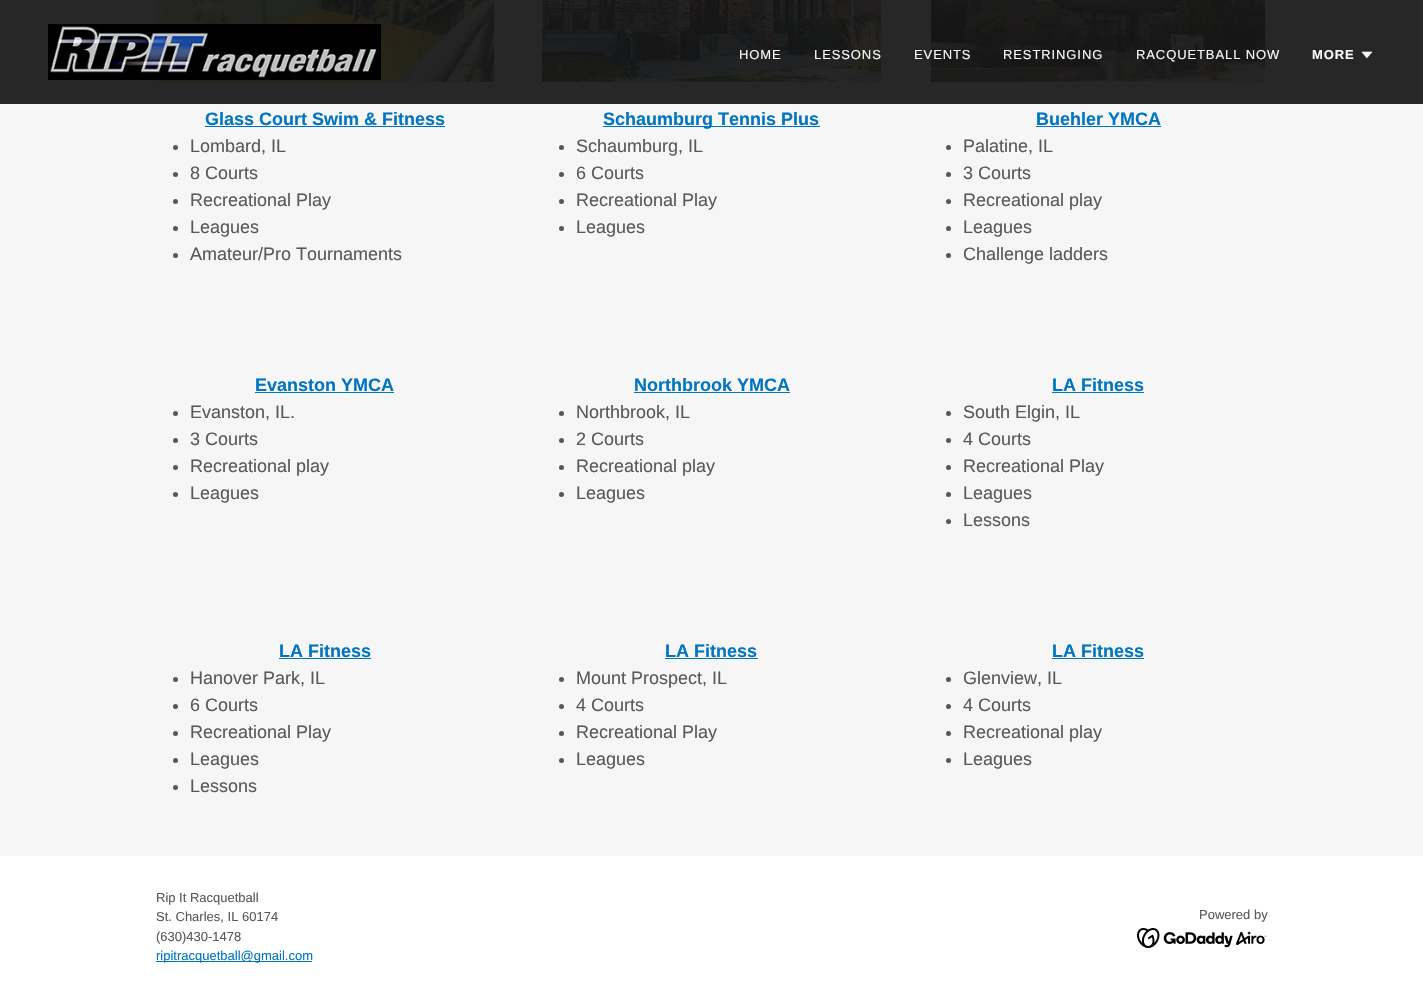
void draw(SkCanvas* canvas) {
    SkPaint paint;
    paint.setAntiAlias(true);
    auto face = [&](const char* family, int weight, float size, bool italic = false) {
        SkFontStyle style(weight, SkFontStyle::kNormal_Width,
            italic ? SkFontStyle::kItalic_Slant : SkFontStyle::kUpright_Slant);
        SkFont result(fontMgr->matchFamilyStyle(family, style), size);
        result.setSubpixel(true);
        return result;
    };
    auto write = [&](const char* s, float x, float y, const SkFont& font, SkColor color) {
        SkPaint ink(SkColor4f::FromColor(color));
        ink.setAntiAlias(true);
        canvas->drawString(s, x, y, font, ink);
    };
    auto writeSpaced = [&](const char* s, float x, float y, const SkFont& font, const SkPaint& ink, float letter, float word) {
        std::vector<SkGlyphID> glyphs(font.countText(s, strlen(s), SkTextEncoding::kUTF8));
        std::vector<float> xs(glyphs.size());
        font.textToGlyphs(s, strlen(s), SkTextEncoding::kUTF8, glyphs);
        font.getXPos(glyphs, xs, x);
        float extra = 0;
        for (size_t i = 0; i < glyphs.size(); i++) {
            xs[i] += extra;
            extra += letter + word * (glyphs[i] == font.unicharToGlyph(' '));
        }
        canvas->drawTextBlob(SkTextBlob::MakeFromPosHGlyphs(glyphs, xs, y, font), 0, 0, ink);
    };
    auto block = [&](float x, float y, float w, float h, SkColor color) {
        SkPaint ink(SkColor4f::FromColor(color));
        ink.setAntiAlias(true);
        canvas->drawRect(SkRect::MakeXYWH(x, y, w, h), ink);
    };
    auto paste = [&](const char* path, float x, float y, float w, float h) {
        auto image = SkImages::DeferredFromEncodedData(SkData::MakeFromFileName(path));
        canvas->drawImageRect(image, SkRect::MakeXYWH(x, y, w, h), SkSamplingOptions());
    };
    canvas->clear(SK_ColorWHITE);
    block(0, 0, 1423, 104, SkColorSetRGB(39, 39, 39));
    paste("pic3.png", 156, 0, 338, 82);
    paste("pic1.png", 48, 24, 333, 56);
    paste("pic4.png", 542, 0, 339, 82);
    auto kFont1 = face("Liberation Sans", 400, 13);
    paint.setColor(SkColorSetRGB(247, 247, 247));
    writeSpaced("HOME", 739, 59, kFont1, paint, 0.9f, 0);
    writeSpaced("LESSONS", 814, 59, kFont1, paint, 0.9f, 0);
    paste("pic5.png", 931, 0, 334, 82);
    writeSpaced("EVENTS", 914, 59, kFont1, paint, 0.9f, 0);
    writeSpaced("RESTRINGING", 1003, 59, kFont1, paint, 0.9f, 0);
    writeSpaced("RACQUETBALL NOW", 1136, 59, kFont1, paint, 0.9f, 0);
    auto kFont2 = face("Liberation Sans", 700, 13);
    writeSpaced("MORE", 1312, 59, kFont2, paint, 0.9f, 0);
    paste("pic2.png", 1361, 51, 12, 8);
    block(0, 104, 1423, 752, SkColorSetRGB(246, 246, 246));
    auto kFont3 = face("Liberation Sans", 700, 18);
    write("Glass Court Swim & Fitness", 205, 125, kFont3, SkColorSetRGB(0, 117, 193));
    block(205, 126, 240, 1, SkColorSetRGB(0, 117, 193));
    paint.setColor(SkColorSetRGB(87, 87, 87));
    canvas->drawCircle(175.5f, 147.5f, 2.5f, paint);
    auto kFont4 = face("Liberation Sans", 400, 18);
    write("Lombard, IL", 190, 152, kFont4, SkColorSetRGB(89, 89, 89));
    canvas->drawCircle(175.5f, 174.5f, 2.5f, paint);
    write("8 Courts", 190, 179, kFont4, SkColorSetRGB(89, 89, 89));
    canvas->drawCircle(175.5f, 201.5f, 2.5f, paint);
    write("Recreational Play", 190, 206, kFont4, SkColorSetRGB(89, 89, 89));
    canvas->drawCircle(175.5f, 228.5f, 2.5f, paint);
    write("Leagues", 190, 233, kFont4, SkColorSetRGB(89, 89, 89));
    canvas->drawCircle(175.5f, 255.5f, 2.5f, paint);
    write("Amateur/Pro Tournaments", 190, 260, kFont4, SkColorSetRGB(89, 89, 89));
    block(603, 126, 217, 1, SkColorSetRGB(0, 117, 193));
    write("Schaumburg Tennis Plus", 603, 125, kFont3, SkColorSetRGB(0, 117, 193));
    canvas->drawCircle(561.5f, 147.5f, 2.5f, paint);
    write("Schaumburg, IL", 576, 152, kFont4, SkColorSetRGB(89, 89, 89));
    canvas->drawCircle(561.5f, 174.5f, 2.5f, paint);
    write("6 Courts", 576, 179, kFont4, SkColorSetRGB(89, 89, 89));
    canvas->drawCircle(561.5f, 201.5f, 2.5f, paint);
    write("Recreational Play", 576, 206, kFont4, SkColorSetRGB(89, 89, 89));
    canvas->drawCircle(561.5f, 228.5f, 2.5f, paint);
    write("Leagues", 576, 233, kFont4, SkColorSetRGB(89, 89, 89));
    write("Buehler YMCA", 1036, 125, kFont3, SkColorSetRGB(0, 117, 193));
    block(1036, 126, 125, 1, SkColorSetRGB(0, 117, 193));
    canvas->drawCircle(948.5f, 147.5f, 2.5f, paint);
    write("Palatine, IL", 963, 152, kFont4, SkColorSetRGB(89, 89, 89));
    canvas->drawCircle(948.5f, 174.5f, 2.5f, paint);
    write("3 Courts", 963, 179, kFont4, SkColorSetRGB(89, 89, 89));
    canvas->drawCircle(948.5f, 201.5f, 2.5f, paint);
    write("Recreational play", 963, 206, kFont4, SkColorSetRGB(89, 89, 89));
    canvas->drawCircle(948.5f, 228.5f, 2.5f, paint);
    write("Leagues", 963, 233, kFont4, SkColorSetRGB(89, 89, 89));
    canvas->drawCircle(948.5f, 255.5f, 2.5f, paint);
    write("Challenge ladders", 963, 260, kFont4, SkColorSetRGB(89, 89, 89));
    write("Evanston YMCA", 255, 391, kFont3, SkColorSetRGB(0, 117, 193));
    block(255, 392, 139, 1, SkColorSetRGB(0, 117, 193));
    canvas->drawCircle(175.5f, 413.5f, 2.5f, paint);
    write("Evanston, IL.", 190, 418, kFont4, SkColorSetRGB(89, 89, 89));
    canvas->drawCircle(175.5f, 440.5f, 2.5f, paint);
    write("3 Courts", 190, 445, kFont4, SkColorSetRGB(89, 89, 89));
    canvas->drawCircle(175.5f, 467.5f, 2.5f, paint);
    write("Recreational play", 190, 472, kFont4, SkColorSetRGB(89, 89, 89));
    canvas->drawCircle(175.5f, 494.5f, 2.5f, paint);
    write("Leagues", 190, 499, kFont4, SkColorSetRGB(89, 89, 89));
    write("Northbrook YMCA", 634, 391, kFont3, SkColorSetRGB(0, 117, 193));
    block(634, 392, 156, 1, SkColorSetRGB(0, 117, 193));
    canvas->drawCircle(561.5f, 413.5f, 2.5f, paint);
    write("Northbrook, IL", 576, 418, kFont4, SkColorSetRGB(89, 89, 89));
    canvas->drawCircle(561.5f, 440.5f, 2.5f, paint);
    write("2 Courts", 576, 445, kFont4, SkColorSetRGB(89, 89, 89));
    canvas->drawCircle(561.5f, 467.5f, 2.5f, paint);
    write("Recreational play", 576, 472, kFont4, SkColorSetRGB(89, 89, 89));
    canvas->drawCircle(561.5f, 494.5f, 2.5f, paint);
    write("Leagues", 576, 499, kFont4, SkColorSetRGB(89, 89, 89));
    write("LA Fitness", 1052, 391, kFont3, SkColorSetRGB(0, 117, 193));
    block(1052, 392, 92, 1, SkColorSetRGB(0, 117, 193));
    canvas->drawCircle(948.5f, 413.5f, 2.5f, paint);
    write("South Elgin, IL", 963, 418, kFont4, SkColorSetRGB(89, 89, 89));
    canvas->drawCircle(948.5f, 440.5f, 2.5f, paint);
    write("4 Courts", 963, 445, kFont4, SkColorSetRGB(89, 89, 89));
    canvas->drawCircle(948.5f, 467.5f, 2.5f, paint);
    write("Recreational Play", 963, 472, kFont4, SkColorSetRGB(89, 89, 89));
    canvas->drawCircle(948.5f, 494.5f, 2.5f, paint);
    write("Leagues", 963, 499, kFont4, SkColorSetRGB(89, 89, 89));
    canvas->drawCircle(948.5f, 521.5f, 2.5f, paint);
    write("Lessons", 963, 526, kFont4, SkColorSetRGB(89, 89, 89));
    write("LA Fitness", 279, 657, kFont3, SkColorSetRGB(0, 117, 193));
    block(279, 658, 92, 1, SkColorSetRGB(0, 117, 193));
    canvas->drawCircle(175.5f, 679.5f, 2.5f, paint);
    write("Hanover Park, IL", 190, 684, kFont4, SkColorSetRGB(89, 89, 89));
    canvas->drawCircle(175.5f, 706.5f, 2.5f, paint);
    write("6 Courts", 190, 711, kFont4, SkColorSetRGB(89, 89, 89));
    canvas->drawCircle(175.5f, 733.5f, 2.5f, paint);
    write("Recreational Play", 190, 738, kFont4, SkColorSetRGB(89, 89, 89));
    canvas->drawCircle(175.5f, 760.5f, 2.5f, paint);
    write("Leagues", 190, 765, kFont4, SkColorSetRGB(89, 89, 89));
    canvas->drawCircle(175.5f, 787.5f, 2.5f, paint);
    write("Lessons", 190, 792, kFont4, SkColorSetRGB(89, 89, 89));
    write("LA Fitness", 665, 657, kFont3, SkColorSetRGB(0, 117, 193));
    block(665, 658, 93, 1, SkColorSetRGB(0, 117, 193));
    canvas->drawCircle(561.5f, 679.5f, 2.5f, paint);
    write("Mount Prospect, IL", 576, 684, kFont4, SkColorSetRGB(89, 89, 89));
    canvas->drawCircle(561.5f, 706.5f, 2.5f, paint);
    write("4 Courts", 576, 711, kFont4, SkColorSetRGB(89, 89, 89));
    canvas->drawCircle(561.5f, 733.5f, 2.5f, paint);
    write("Recreational Play", 576, 738, kFont4, SkColorSetRGB(89, 89, 89));
    canvas->drawCircle(561.5f, 760.5f, 2.5f, paint);
    write("Leagues", 576, 765, kFont4, SkColorSetRGB(89, 89, 89));
    write("LA Fitness", 1052, 657, kFont3, SkColorSetRGB(0, 117, 193));
    block(1052, 658, 92, 1, SkColorSetRGB(0, 117, 193));
    canvas->drawCircle(948.5f, 679.5f, 2.5f, paint);
    write("Glenview, IL", 963, 684, kFont4, SkColorSetRGB(89, 89, 89));
    canvas->drawCircle(948.5f, 706.5f, 2.5f, paint);
    write("4 Courts", 963, 711, kFont4, SkColorSetRGB(89, 89, 89));
    canvas->drawCircle(948.5f, 733.5f, 2.5f, paint);
    write("Recreational play", 963, 738, kFont4, SkColorSetRGB(89, 89, 89));
    canvas->drawCircle(948.5f, 760.5f, 2.5f, paint);
    write("Leagues", 963, 765, kFont4, SkColorSetRGB(89, 89, 89));
    write("Rip It Racquetball", 156, 902, kFont1, SkColorSetRGB(89, 89, 89));
    write("St. Charles, IL 60174", 156, 921, kFont1, SkColorSetRGB(89, 89, 89));
    write("(630)430-1478", 156, 941, kFont1, SkColorSetRGB(89, 89, 89));
    block(156, 961, 156, 1, SkColorSetRGB(0, 117, 193));
    write("ripitracquetball@gmail.com", 156, 960, kFont1, SkColorSetRGB(0, 117, 193));
    write("Powered by", 1199, 919, kFont1, SkColorSetRGB(89, 89, 89));
    paste("pic6.png", 1137, 928, 130, 20);
}
